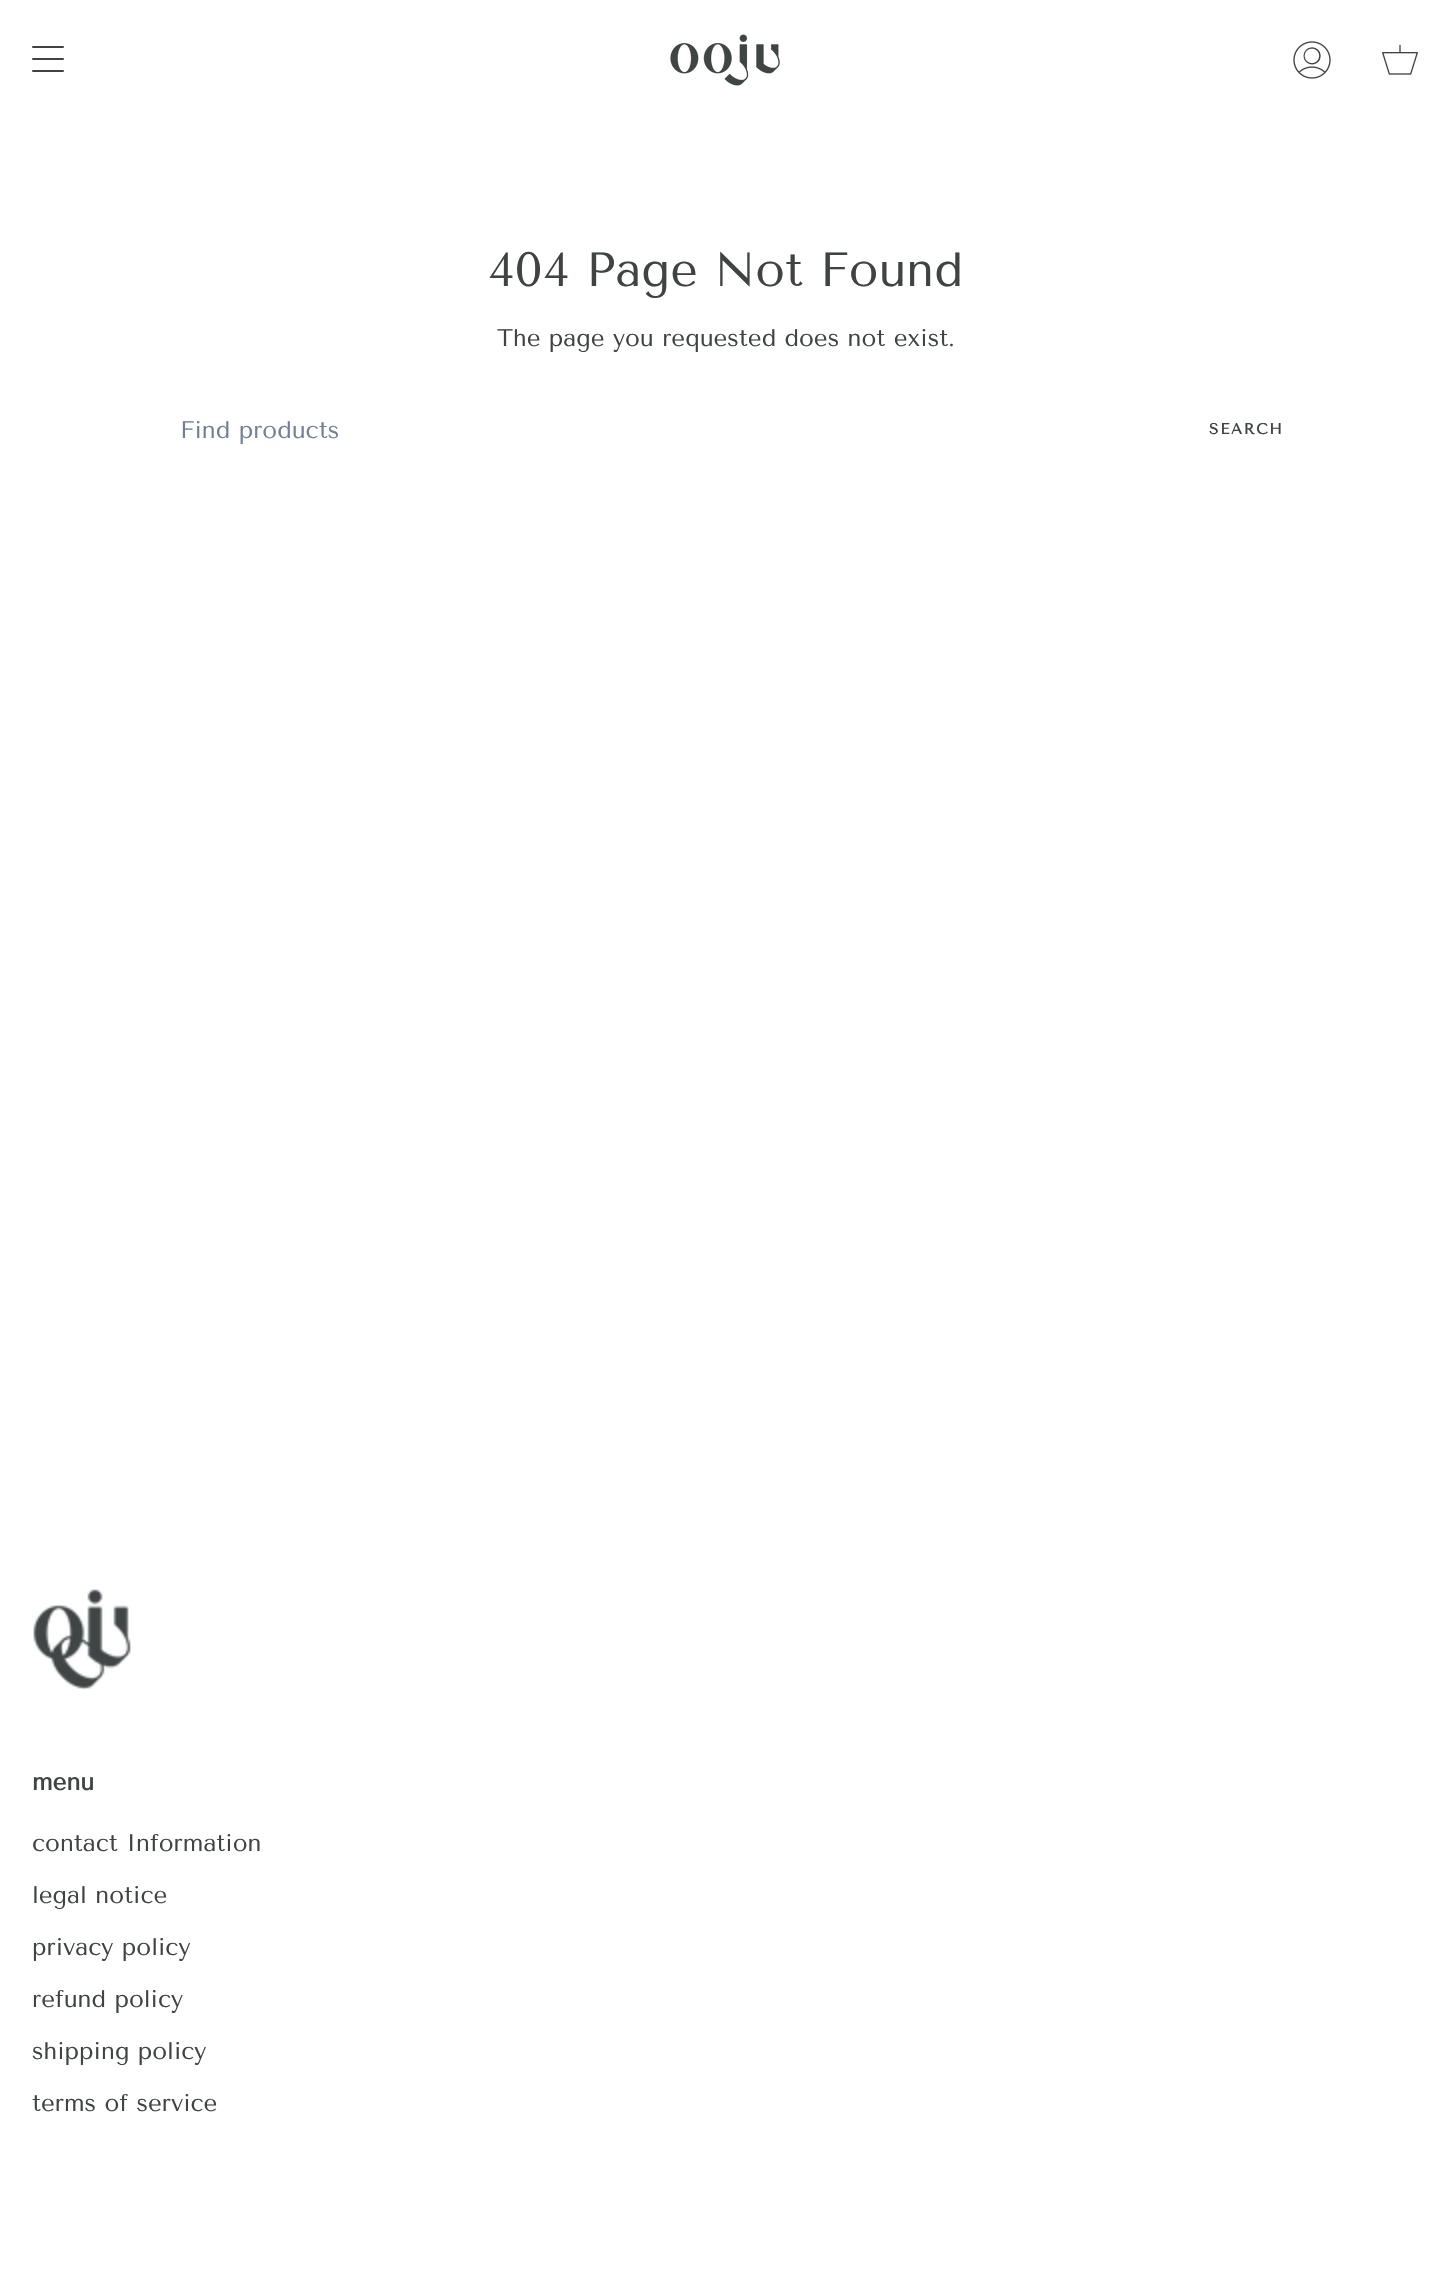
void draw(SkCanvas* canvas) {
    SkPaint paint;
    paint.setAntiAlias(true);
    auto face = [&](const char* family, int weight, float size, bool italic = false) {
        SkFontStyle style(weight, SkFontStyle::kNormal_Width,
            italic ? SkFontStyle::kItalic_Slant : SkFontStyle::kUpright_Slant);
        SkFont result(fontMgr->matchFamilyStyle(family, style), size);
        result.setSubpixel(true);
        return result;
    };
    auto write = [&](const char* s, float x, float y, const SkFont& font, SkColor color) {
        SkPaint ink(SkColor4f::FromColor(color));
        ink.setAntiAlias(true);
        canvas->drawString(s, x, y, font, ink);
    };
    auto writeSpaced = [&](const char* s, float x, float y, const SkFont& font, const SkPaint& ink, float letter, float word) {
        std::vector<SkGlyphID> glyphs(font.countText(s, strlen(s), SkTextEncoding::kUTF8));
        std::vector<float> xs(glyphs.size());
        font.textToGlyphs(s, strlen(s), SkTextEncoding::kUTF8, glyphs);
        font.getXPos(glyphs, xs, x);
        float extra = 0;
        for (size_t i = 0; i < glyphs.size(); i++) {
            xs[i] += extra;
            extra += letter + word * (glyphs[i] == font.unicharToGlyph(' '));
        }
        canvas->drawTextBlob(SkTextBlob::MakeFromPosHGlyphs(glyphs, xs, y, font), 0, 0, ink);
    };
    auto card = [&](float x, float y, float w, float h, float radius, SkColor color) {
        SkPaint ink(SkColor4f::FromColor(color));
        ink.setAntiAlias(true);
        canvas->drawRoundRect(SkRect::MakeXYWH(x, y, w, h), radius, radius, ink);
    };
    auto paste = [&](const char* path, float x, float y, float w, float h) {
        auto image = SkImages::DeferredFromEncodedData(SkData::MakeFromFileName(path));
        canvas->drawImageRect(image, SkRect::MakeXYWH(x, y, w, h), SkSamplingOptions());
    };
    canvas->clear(SK_ColorWHITE);
    card(32, 46, 32, 2, 1, SkColorSetRGB(64, 67, 68));
    card(32, 58, 32, 2, 1, SkColorSetRGB(64, 67, 68));
    card(32, 70, 32, 2, 1, SkColorSetRGB(64, 67, 68));
    paste("pic1.png", 670, 34, 110, 52);
    paste("pic2.png", 1293, 41, 38, 38);
    paste("pic3.png", 1382, 44, 36, 31);
    auto kFont1 = face("Tenor Sans", 400, 48);
    write("404 Page Not Found", 488, 286, kFont1, SkColorSetRGB(64, 67, 68));
    auto kFont2 = face("Tenor Sans", 400, 24);
    write("The page you requested does not exist.", 497, 346, kFont2, SkColorSetRGB(64, 67, 68));
    write("Find products", 180, 438, kFont2, SkColorSetRGB(113, 128, 150));
    auto kFont3 = face("Tenor Sans", 700, 15);
    paint.setColor(SkColorSetRGB(64, 67, 68));
    writeSpaced("SEARCH", 1209, 434, kFont3, paint, 1.75f, 0);
    paste("pic4.png", 33, 1589, 99, 101);
    auto kFont4 = face("Tenor Sans", 700, 24);
    write("menu", 32, 1790, kFont4, SkColorSetRGB(64, 67, 68));
    write("contact Information", 32, 1851, kFont2, SkColorSetRGB(64, 67, 68));
    write("legal notice", 32, 1903, kFont2, SkColorSetRGB(64, 67, 68));
    write("privacy policy", 32, 1955, kFont2, SkColorSetRGB(64, 67, 68));
    write("refund policy", 32, 2007, kFont2, SkColorSetRGB(64, 67, 68));
    write("shipping policy", 32, 2059, kFont2, SkColorSetRGB(64, 67, 68));
    write("terms of service", 32, 2111, kFont2, SkColorSetRGB(64, 67, 68));
}
